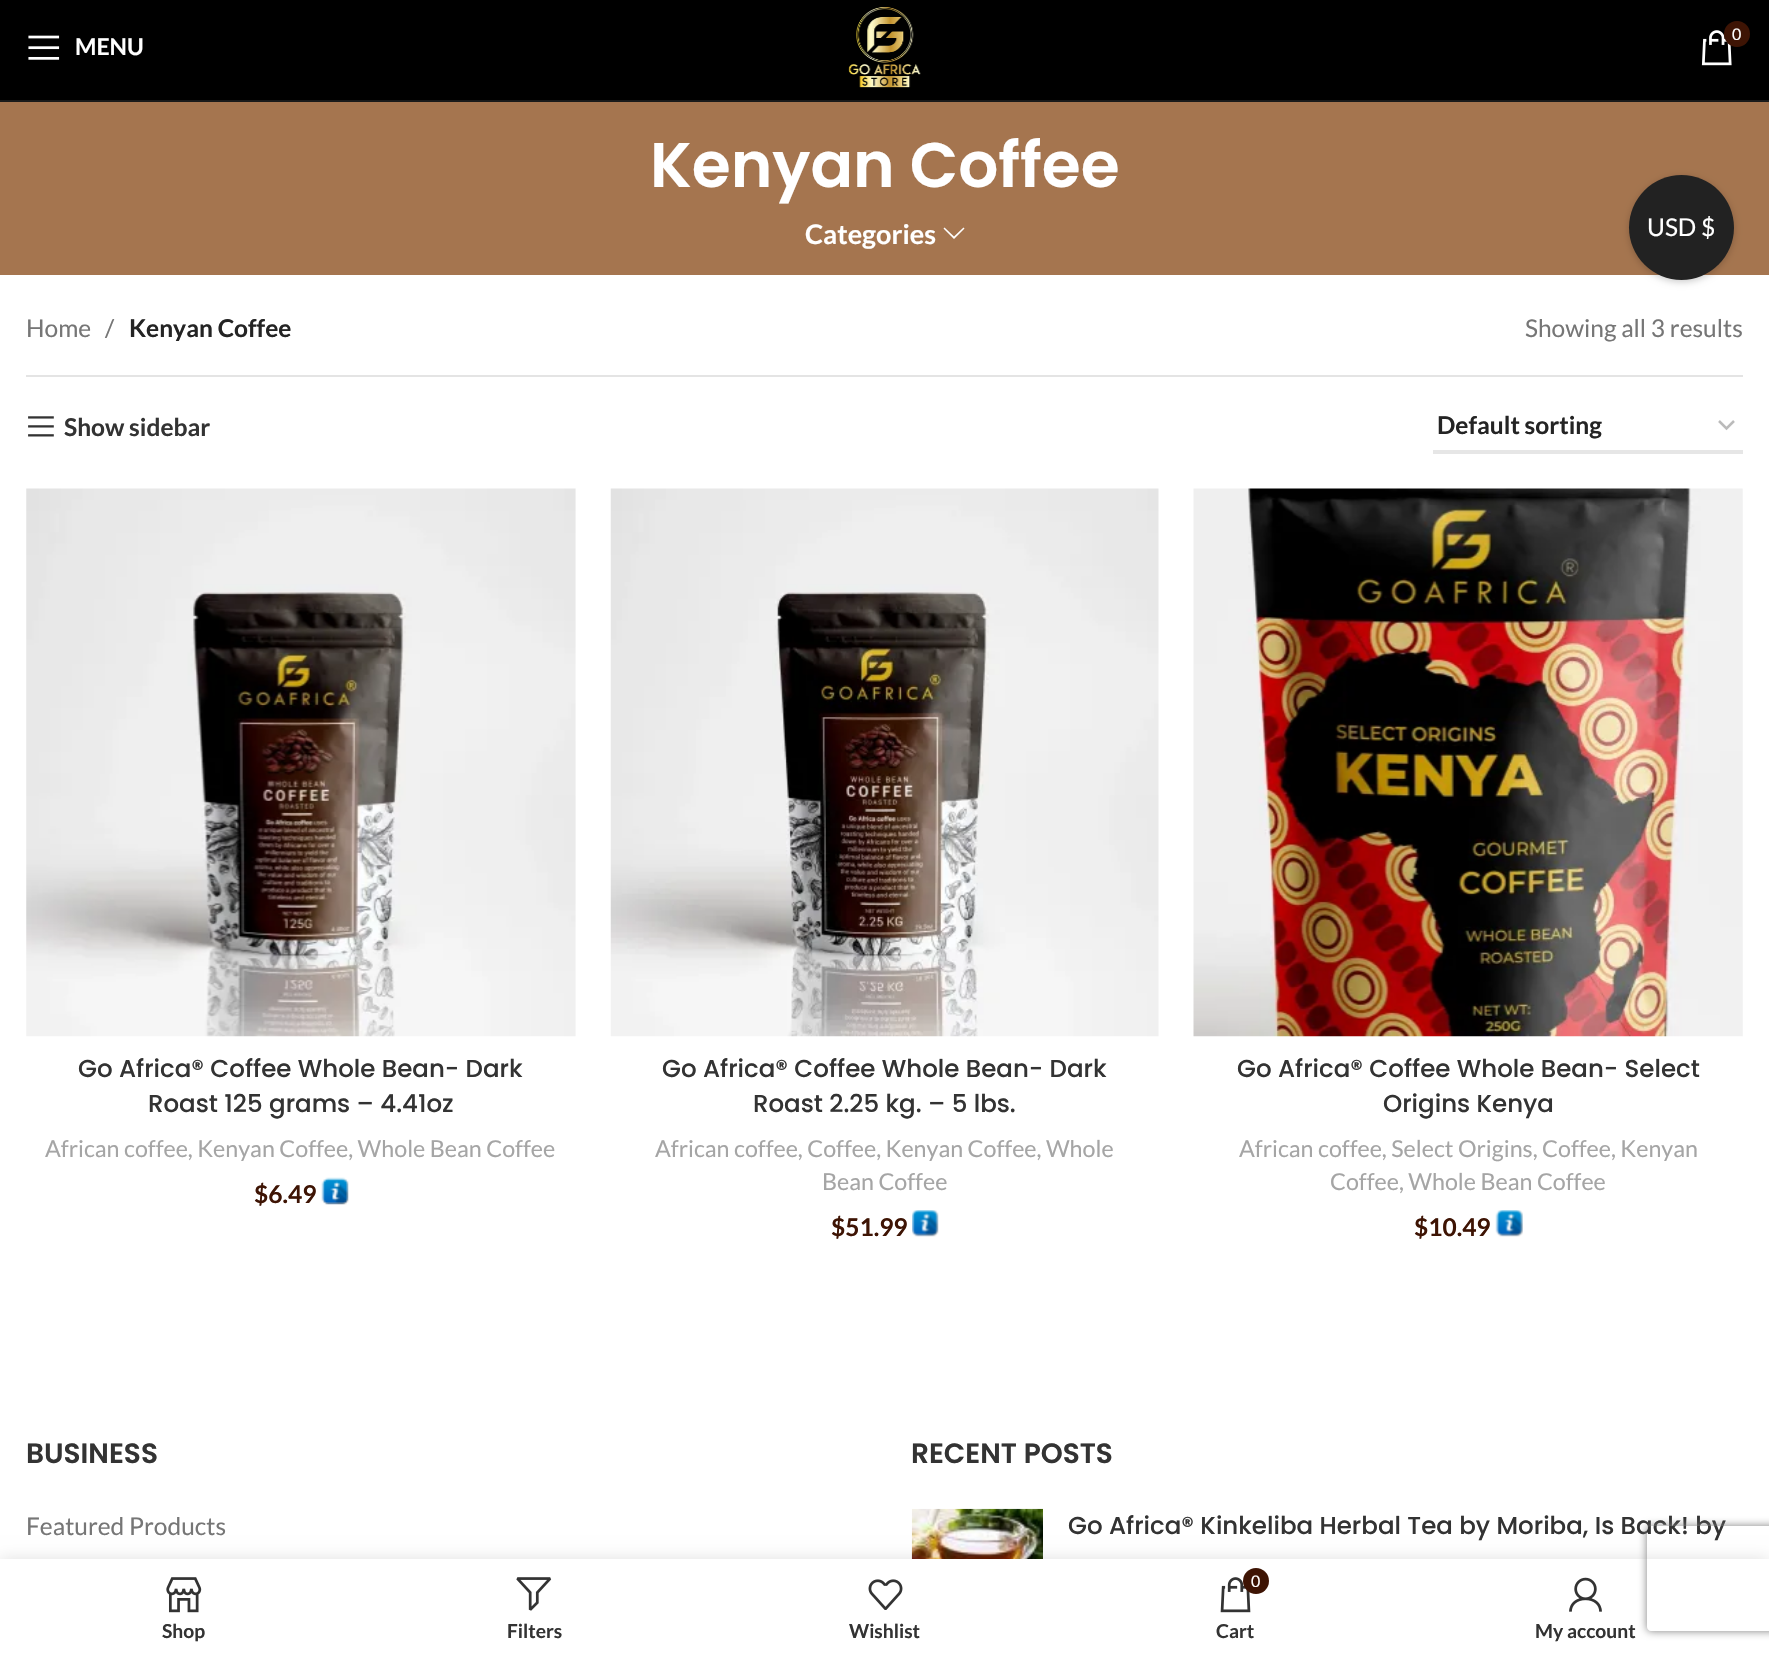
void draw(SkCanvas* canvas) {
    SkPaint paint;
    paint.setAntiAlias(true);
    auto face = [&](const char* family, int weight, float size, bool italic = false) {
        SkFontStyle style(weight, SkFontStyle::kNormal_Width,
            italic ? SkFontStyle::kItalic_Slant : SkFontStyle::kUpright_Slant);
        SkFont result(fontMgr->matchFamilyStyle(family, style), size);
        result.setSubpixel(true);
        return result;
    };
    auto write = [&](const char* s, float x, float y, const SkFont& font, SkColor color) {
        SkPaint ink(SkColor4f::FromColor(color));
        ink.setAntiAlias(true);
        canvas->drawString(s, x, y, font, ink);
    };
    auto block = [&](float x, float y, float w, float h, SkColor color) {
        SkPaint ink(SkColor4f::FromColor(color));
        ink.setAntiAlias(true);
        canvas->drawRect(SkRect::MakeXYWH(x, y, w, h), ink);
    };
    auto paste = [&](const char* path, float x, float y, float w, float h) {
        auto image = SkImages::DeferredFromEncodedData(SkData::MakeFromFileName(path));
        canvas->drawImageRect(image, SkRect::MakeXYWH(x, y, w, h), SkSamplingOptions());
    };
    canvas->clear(SK_ColorWHITE);
    block(0, 0, 1769, 100, SK_ColorBLACK);
    block(0, 100, 1769, 2, SkColorSetRGB(26, 26, 26));
    paste("pic1.png", 848, 7, 73, 81);
    paste("pic2.png", 1701, 30, 31, 36);
    paint.setColor(SkColorSetRGB(62, 20, 4));
    canvas->drawCircle(1737, 34, 13, paint);
    auto kFont1 = face("Lato", 400, 16);
    write("0", 1732, 40, kFont1, SK_ColorWHITE);
    paste("pic3.png", 28, 35, 32, 25);
    auto kFont2 = face("Lato", 700, 23);
    write("MENU", 75, 55, kFont2, SK_ColorWHITE);
    block(0, 102, 1769, 173, SkColorSetRGB(165, 117, 79));
    auto kFont3 = face("Poppins", 600, 63);
    write("Kenyan Coffee", 650, 187, kFont3, SK_ColorWHITE);
    auto kFont4 = face("Lato", 700, 27);
    write("Categories", 805, 244, kFont4, SK_ColorWHITE);
    paint.setColor(SK_ColorWHITE);
    canvas->drawPath(SkPathBuilder().moveTo(963.5f, 227.5f).lineTo(954, 236.5f).lineTo(944.5f, 227.5f).lineTo(943.5f, 228.5f).lineTo(954, 239).lineTo(964.5f, 228.5f).close().detach(), paint);
    block(26, 375, 1717, 2, SkColorSetRGB(228, 228, 228));
    auto kFont5 = face("Lato", 400, 24.5f);
    write("Home", 26, 337, kFont5, SkColorSetRGB(118, 118, 118));
    write("/", 105, 337, kFont5, SkColorSetRGB(118, 118, 118));
    auto kFont6 = face("Lato", 700, 24.5f);
    write("Kenyan Coffee", 129, 337, kFont6, SkColorSetRGB(36, 36, 36));
    write("Showing all 3 results", 1525, 337, kFont5, SkColorSetRGB(118, 118, 118));
    paste("pic4.png", 28, 416, 26, 21);
    write("Show sidebar", 64, 436, kFont6, SkColorSetRGB(51, 51, 51));
    paint.setStyle(SkPaint::kStroke_Style);
    paint.setStrokeWidth(2.5f);
    paint.setColor(SkColorSetRGB(187, 187, 187));
    canvas->drawPath(SkPathBuilder().moveTo(1719, 421).lineTo(1726.5f, 428.5f).lineTo(1734, 421).detach(), paint);
    block(1433, 450, 310, 4, SkColorSetRGB(230, 230, 230));
    write("Default sorting", 1437, 434, kFont6, SkColorSetRGB(36, 36, 36));
    paste("pic5.png", 26, 488, 550, 549);
    auto kFont7 = face("Poppins", 500, 24.5f);
    write("Go Africa® Coffee Whole Bean- Dark", 78, 1077, kFont7, SkColorSetRGB(51, 51, 51));
    write("Roast 125 grams – 4.41oz", 148, 1112, kFont7, SkColorSetRGB(51, 51, 51));
    auto kFont8 = face("Lato", 400, 23.25f);
    write("African coffee, Kenyan Coffee, Whole Bean Coffee", 45, 1157, kFont8, SkColorSetRGB(165, 165, 165));
    write("$6.49", 254, 1203, kFont6, SkColorSetRGB(62, 20, 4));
    paste("pic6.png", 321, 1177, 28, 28);
    paste("pic7.png", 610, 488, 549, 549);
    write("Go Africa® Coffee Whole Bean- Dark", 662, 1077, kFont7, SkColorSetRGB(51, 51, 51));
    write("Roast 2.25 kg. – 5 lbs.", 753, 1112, kFont7, SkColorSetRGB(51, 51, 51));
    write("African coffee, Coffee, Kenyan Coffee, Whole", 655, 1157, kFont8, SkColorSetRGB(165, 165, 165));
    write("Bean Coffee", 822, 1190, kFont8, SkColorSetRGB(165, 165, 165));
    write("$51.99", 831, 1236, kFont6, SkColorSetRGB(62, 20, 4));
    paste("pic8.png", 912, 1210, 27, 27);
    paste("pic9.png", 1193, 488, 550, 549);
    write("Go Africa® Coffee Whole Bean- Select", 1237, 1077, kFont7, SkColorSetRGB(51, 51, 51));
    write("Origins Kenya", 1383, 1112, kFont7, SkColorSetRGB(51, 51, 51));
    write("African coffee, Select Origins, Coffee, Kenyan", 1239, 1157, kFont8, SkColorSetRGB(165, 165, 165));
    write("Coffee, Whole Bean Coffee", 1330, 1190, kFont8, SkColorSetRGB(165, 165, 165));
    write("$10.49", 1414, 1236, kFont6, SkColorSetRGB(62, 20, 4));
    paste("pic10.png", 1495, 1210, 28, 27);
    auto kFont9 = face("Poppins", 600, 28);
    write("BUSINESS", 26, 1463, kFont9, SkColorSetRGB(51, 51, 51));
    write("Featured Products", 26, 1535, kFont5, SkColorSetRGB(118, 118, 118));
    write("RECENT POSTS", 911, 1463, kFont9, SkColorSetRGB(51, 51, 51));
    paste("pic11.png", 911, 1508, 132, 51);
    write("Go Africa® Kinkeliba Herbal Tea by Moriba, Is Back! by", 1068, 1534, kFont7, SkColorSetRGB(51, 51, 51));
    paint.setStyle(SkPaint::kFill_Style);
    paint.setColor(SkColorSetARGB(51, 0, 0, 0));
    paint.setMaskFilter(SkMaskFilter::MakeBlur(kNormal_SkBlurStyle, 3.5f));
    canvas->drawRoundRect(SkRect::MakeXYWH(1629, 177, 105, 105), 52.5f, 52.5f, paint);
    paint.setMaskFilter(nullptr);
    paint.setColor(SkColorSetRGB(34, 34, 34));
    canvas->drawCircle(1681.5f, 227.5f, 52.5f, paint);
    write("USD $", 1647, 236, kFont5, SK_ColorWHITE);
    paint.setColor(SkColorSetARGB(31, 0, 0, 0));
    paint.setMaskFilter(SkMaskFilter::MakeBlur(kNormal_SkBlurStyle, 8));
    canvas->drawRect(SkRect::MakeXYWH(0, 1559, 1769, 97), paint);
    paint.setMaskFilter(nullptr);
    block(0, 1559, 1769, 95, SK_ColorWHITE);
    paste("pic12.png", 166, 1577, 36, 36);
    auto kFont10 = face("Lato", 700, 19.25f);
    write("Shop", 162, 1638, kFont10, SkColorSetRGB(51, 51, 51));
    paste("pic13.png", 516, 1577, 36, 34);
    write("Filters", 507, 1638, kFont10, SkColorSetRGB(51, 51, 51));
    paste("pic14.png", 868, 1579, 35, 31);
    write("Wishlist", 849, 1638, kFont10, SkColorSetRGB(51, 51, 51));
    paste("pic15.png", 1220, 1577, 31, 36);
    paint.setColor(SkColorSetRGB(62, 20, 4));
    canvas->drawCircle(1256, 1581, 13, paint);
    write("0", 1251, 1587, kFont1, SK_ColorWHITE);
    write("Cart", 1216, 1638, kFont10, SkColorSetRGB(51, 51, 51));
    paste("pic16.png", 1569, 1577, 33, 35);
    write("My account", 1535, 1638, kFont10, SkColorSetRGB(51, 51, 51));
    canvas->save();
    canvas->clipPath(SkPathBuilder(SkPathFillType::kEvenOdd).moveTo(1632, 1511).lineTo(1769, 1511).lineTo(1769, 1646).lineTo(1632, 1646).close().moveTo(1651, 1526).lineTo(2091, 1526).cubicTo(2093, 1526, 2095, 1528, 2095, 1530).lineTo(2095, 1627).cubicTo(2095, 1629, 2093, 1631, 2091, 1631).lineTo(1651, 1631).cubicTo(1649, 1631, 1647, 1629, 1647, 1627).lineTo(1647, 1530).cubicTo(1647, 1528, 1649, 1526, 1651, 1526).close().detach(), true);
    paint.setColor(SkColorSetRGB(128, 128, 128));
    paint.setMaskFilter(SkMaskFilter::MakeBlur(kNormal_SkBlurStyle, 4.5f));
    canvas->drawRoundRect(SkRect::MakeXYWH(1647, 1526, 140, 105), 4, 4, paint);
    paint.setMaskFilter(nullptr);
    canvas->restore();
}
